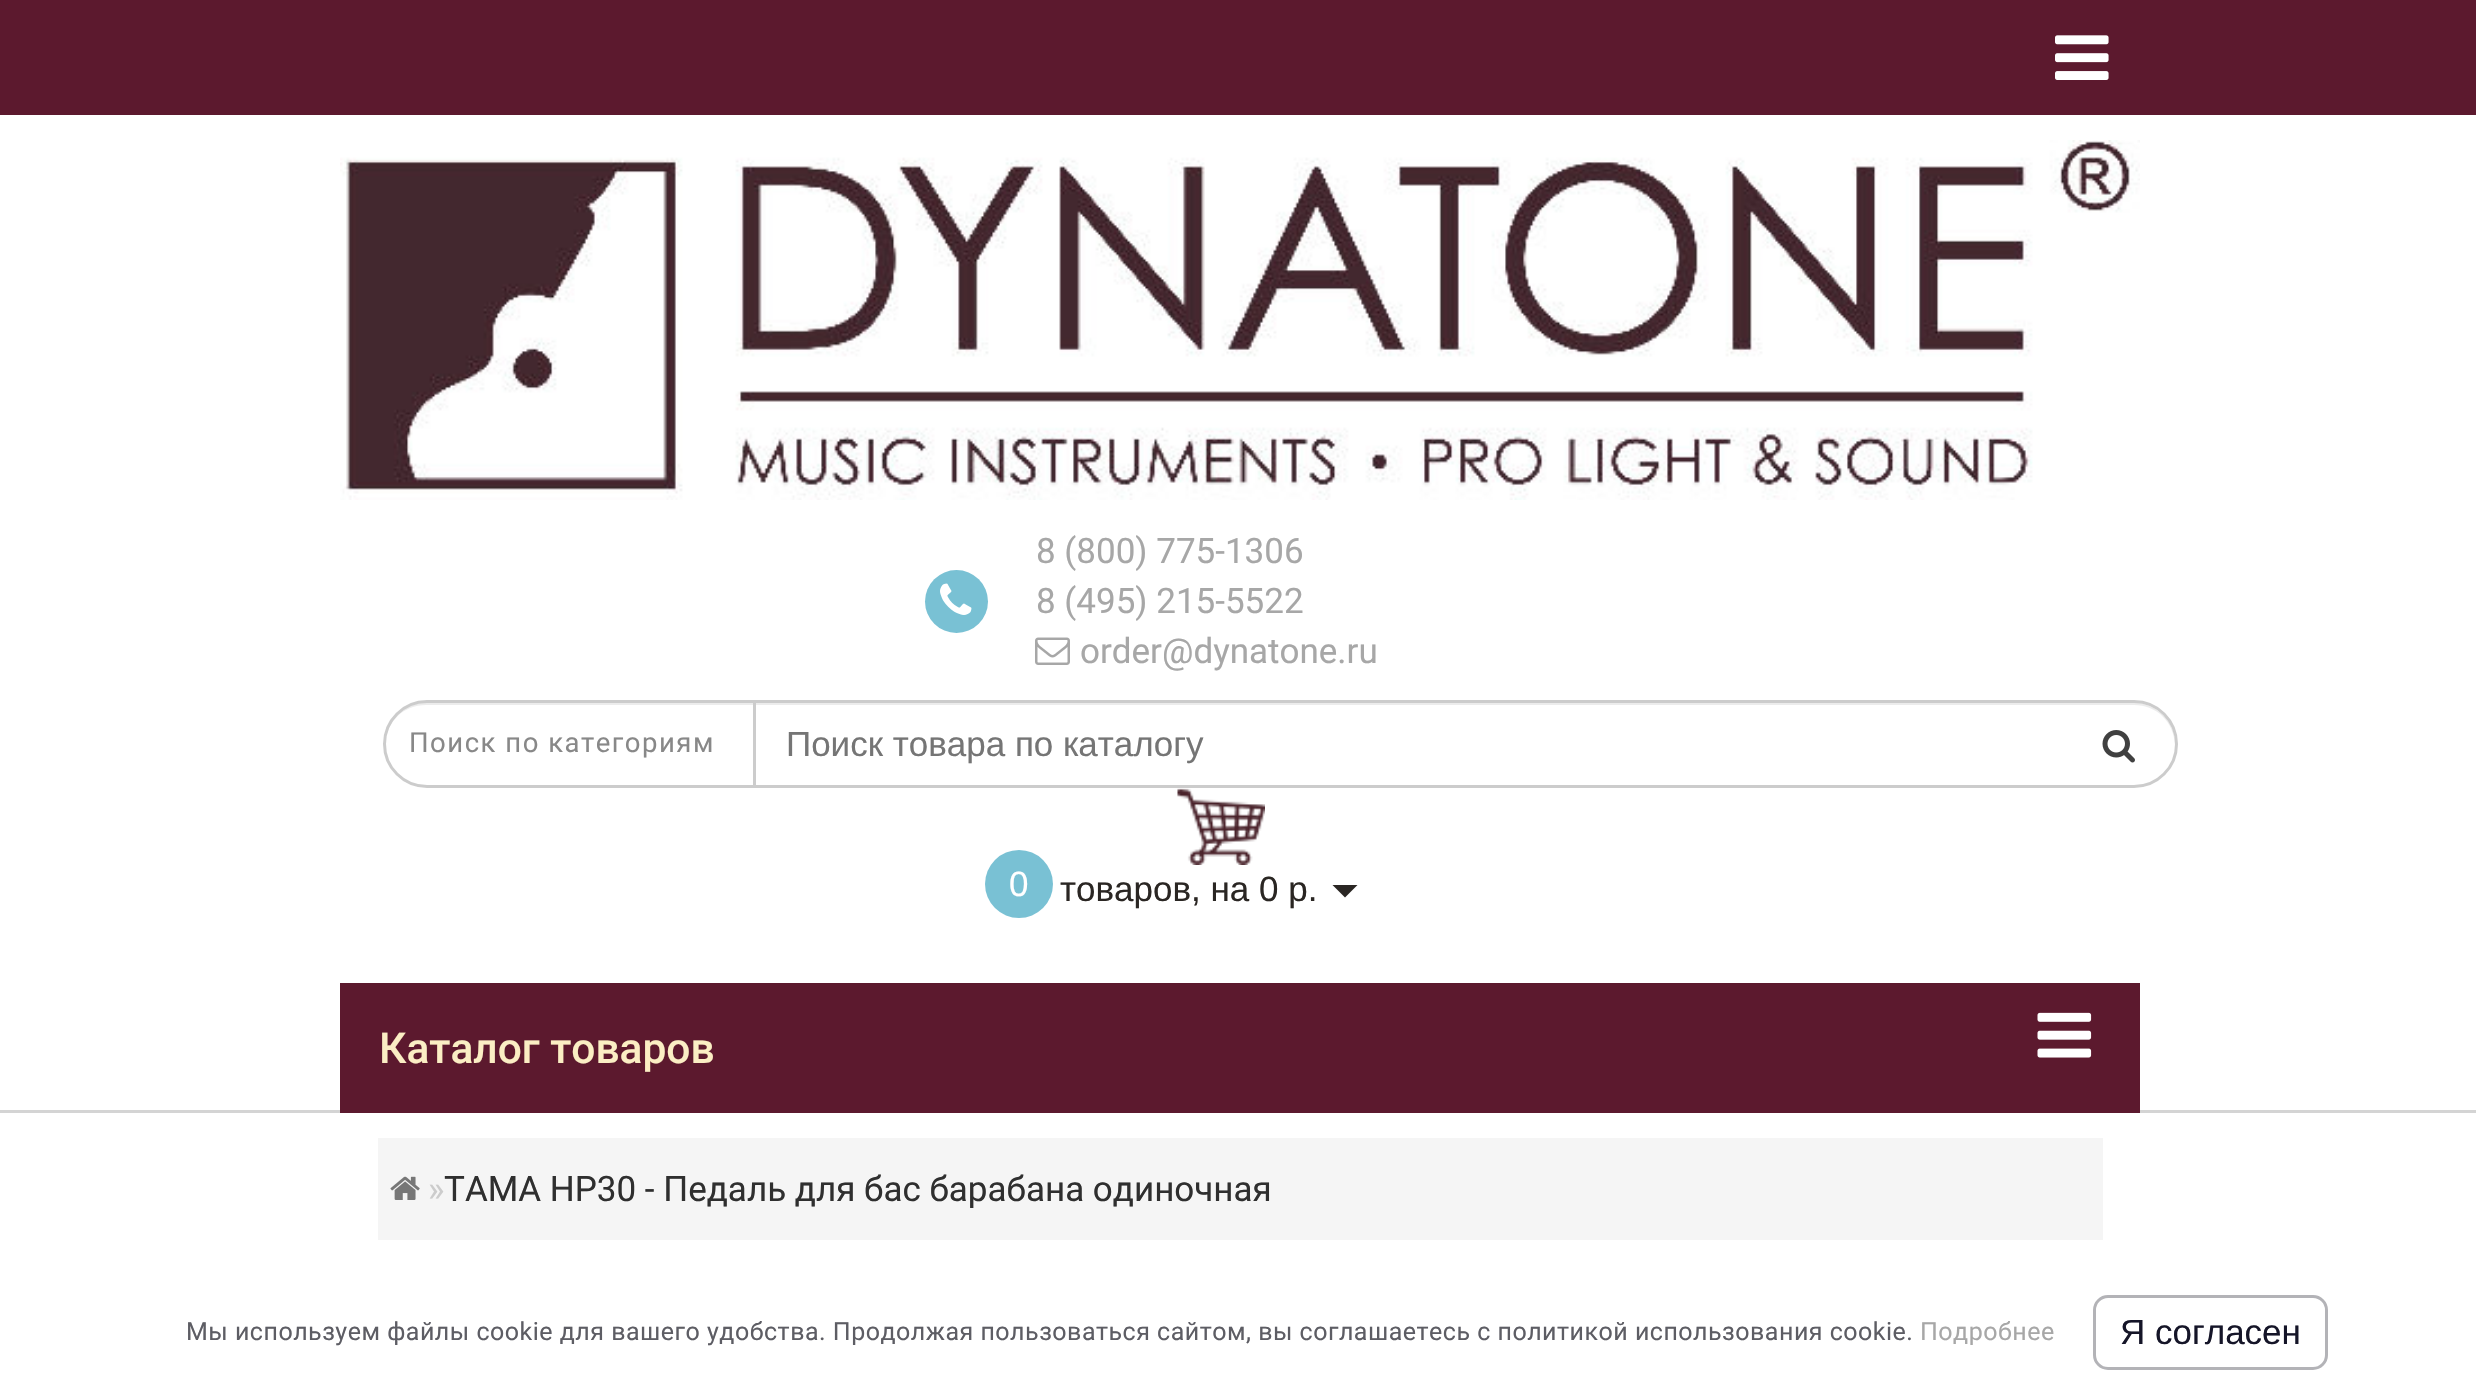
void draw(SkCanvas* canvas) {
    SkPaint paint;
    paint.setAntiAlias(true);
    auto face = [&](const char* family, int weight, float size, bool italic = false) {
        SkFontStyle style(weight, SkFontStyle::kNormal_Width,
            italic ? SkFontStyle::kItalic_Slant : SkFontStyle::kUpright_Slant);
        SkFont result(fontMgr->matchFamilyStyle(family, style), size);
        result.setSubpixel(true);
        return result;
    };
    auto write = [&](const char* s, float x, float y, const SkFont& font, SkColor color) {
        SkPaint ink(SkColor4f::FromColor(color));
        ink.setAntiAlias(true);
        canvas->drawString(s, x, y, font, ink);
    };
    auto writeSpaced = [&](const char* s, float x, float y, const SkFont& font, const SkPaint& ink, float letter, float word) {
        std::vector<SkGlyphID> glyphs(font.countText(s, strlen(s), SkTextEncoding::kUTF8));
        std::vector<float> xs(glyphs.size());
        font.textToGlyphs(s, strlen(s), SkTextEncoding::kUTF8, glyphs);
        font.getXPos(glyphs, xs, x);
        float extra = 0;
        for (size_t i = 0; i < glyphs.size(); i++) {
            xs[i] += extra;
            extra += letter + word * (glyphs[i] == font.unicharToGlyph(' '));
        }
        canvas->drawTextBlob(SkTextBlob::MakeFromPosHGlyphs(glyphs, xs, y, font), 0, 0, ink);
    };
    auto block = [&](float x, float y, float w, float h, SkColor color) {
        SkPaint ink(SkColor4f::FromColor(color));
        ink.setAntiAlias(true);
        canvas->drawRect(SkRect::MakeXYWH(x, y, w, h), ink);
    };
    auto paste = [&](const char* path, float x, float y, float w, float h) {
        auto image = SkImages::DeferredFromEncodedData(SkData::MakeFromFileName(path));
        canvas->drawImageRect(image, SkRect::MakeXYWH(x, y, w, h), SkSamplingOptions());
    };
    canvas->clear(SK_ColorWHITE);
    block(0, 0, 2476, 115, SkColorSetRGB(92, 25, 46));
    paste("pic1.png", 2055, 35, 54, 45);
    block(0, 1110, 2476, 3, SkColorSetRGB(212, 212, 212));
    paste("pic2.png", 340, 140, 1800, 360);
    auto kFont1 = face("Roboto", 400, 35);
    write("8 (800) 775-1306", 1036, 563, kFont1, SkColorSetRGB(167, 167, 167));
    paint.setColor(SkColorSetRGB(121, 193, 212));
    canvas->drawCircle(956.5f, 601.5f, 31.5f, paint);
    paste("pic3.png", 940, 583, 32, 32);
    write("8 (495) 215-5522", 1036, 613, kFont1, SkColorSetRGB(167, 167, 167));
    paste("pic4.png", 1035, 637, 35, 28);
    write("order@dynatone.ru", 1080, 663, kFont1, SkColorSetRGB(167, 167, 167));
    paint.setColor(SkColorSetRGB(236, 236, 236));
    canvas->drawPath(SkPathBuilder().moveTo(426, 705).lineTo(755, 705).lineTo(755, 703).lineTo(426, 703).cubicTo(403, 703, 385, 721, 385, 744).lineTo(385, 745).cubicTo(386, 722, 403, 705, 426, 705).close().detach(), paint);
    paint.setStyle(SkPaint::kStroke_Style);
    paint.setStrokeWidth(3);
    paint.setColor(SkColorSetRGB(204, 204, 204));
    canvas->drawPath(SkPathBuilder().moveTo(427, 701.5f).lineTo(756.5f, 701.5f).lineTo(756.5f, 786.5f).lineTo(427, 786.5f).cubicTo(403.5f, 786.5f, 384.5f, 767.5f, 384.5f, 744).cubicTo(384.5f, 720.5f, 403.5f, 701.5f, 427, 701.5f).close().detach(), paint);
    auto kFont2 = face("Roboto", 400, 27.5f);
    paint.setStyle(SkPaint::kFill_Style);
    paint.setColor(SkColorSetRGB(136, 136, 136));
    writeSpaced("Поиск по категориям", 409, 752, kFont2, paint, 1.5f, 0);
    paint.setColor(SK_ColorWHITE);
    canvas->drawPath(SkPathBuilder().moveTo(753, 700).lineTo(2134, 700).cubicTo(2158.5f, 700, 2178, 719.5f, 2178, 744).cubicTo(2178, 768.5f, 2158.5f, 788, 2134, 788).lineTo(753, 788).close().detach(), paint);
    paint.setColor(SkColorSetRGB(236, 236, 236));
    canvas->drawPath(SkPathBuilder().moveTo(755, 705).lineTo(2134, 705).cubicTo(2157, 705, 2174, 722, 2175, 745).cubicTo(2176, 722, 2157, 703, 2134, 703).lineTo(755, 703).close().detach(), paint);
    paint.setStyle(SkPaint::kStroke_Style);
    paint.setColor(SkColorSetRGB(204, 204, 204));
    canvas->drawPath(SkPathBuilder().moveTo(754.5f, 701.5f).lineTo(2134, 701.5f).cubicTo(2157.5f, 701.5f, 2176.5f, 720.5f, 2176.5f, 744).cubicTo(2176.5f, 767.5f, 2157.5f, 786.5f, 2134, 786.5f).lineTo(754.5f, 786.5f).close().detach(), paint);
    auto kFont3 = face("Liberation Sans", 400, 35);
    write("Поиск товара по каталогу", 786, 756, kFont3, SkColorSetRGB(117, 117, 117));
    paste("pic5.png", 2102, 730, 33, 33);
    paste("pic6.png", 1177, 788, 88, 77);
    paint.setStyle(SkPaint::kFill_Style);
    paint.setColor(SkColorSetRGB(121, 193, 212));
    canvas->drawCircle(1019, 884, 34, paint);
    write("0", 1009, 896, kFont3, SK_ColorWHITE);
    write("товаров, на 0 р.", 1060, 901, kFont3, SkColorSetRGB(42, 38, 35));
    paint.setColor(SkColorSetRGB(42, 38, 35));
    canvas->drawPath(SkPathBuilder().moveTo(1332.5f, 885).lineTo(1357.5f, 885).lineTo(1345, 897.5f).close().detach(), paint);
    block(340, 983, 1800, 130, SkColorSetRGB(92, 25, 46));
    auto kFont4 = face("Roboto", 500, 42.5f);
    write("Каталог товаров", 379, 1063, kFont4, SkColorSetRGB(251, 238, 196));
    paste("pic7.png", 2037, 1012, 55, 46);
    block(378, 1138, 1725, 102, SkColorSetRGB(245, 245, 245));
    paste("pic8.png", 390, 1176, 30, 24);
    write("»", 428, 1201, kFont1, SkColorSetRGB(204, 204, 204));
    write("TAMA HP30 - Педаль для бас барабана одиночная", 444, 1201, kFont1, SkColorSetRGB(47, 47, 47));
    auto kFont5 = face("Roboto", 400, 25);
    paint.setColor(SkColorSetRGB(93, 93, 100));
    writeSpaced("Мы используем файлы cookie для вашего удобства. Продолжая пользоваться сайтом, вы соглашаетесь с политикой использования cookie.", 186, 1340, kFont5, paint, 0.5f, 0);
    paint.setColor(SkColorSetRGB(167, 167, 167));
    writeSpaced("Подробнее", 1920, 1340, kFont5, paint, 0.5f, 0);
    paint.setStyle(SkPaint::kStroke_Style);
    paint.setColor(SkColorSetRGB(179, 179, 183));
    canvas->drawRoundRect(SkRect::MakeXYWH(2094.5f, 1296.5f, 232, 72), 13.5f, 13.5f, paint);
    write("Я согласен", 2120, 1344, kFont3, SkColorSetRGB(21, 21, 40));
}
